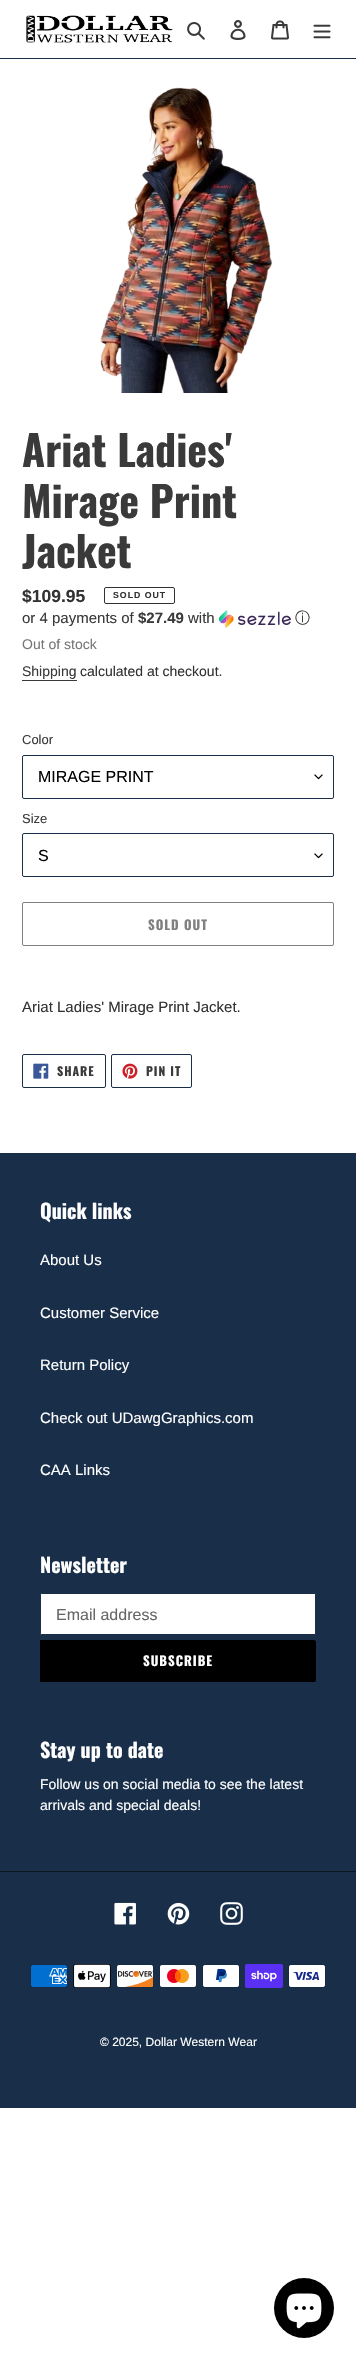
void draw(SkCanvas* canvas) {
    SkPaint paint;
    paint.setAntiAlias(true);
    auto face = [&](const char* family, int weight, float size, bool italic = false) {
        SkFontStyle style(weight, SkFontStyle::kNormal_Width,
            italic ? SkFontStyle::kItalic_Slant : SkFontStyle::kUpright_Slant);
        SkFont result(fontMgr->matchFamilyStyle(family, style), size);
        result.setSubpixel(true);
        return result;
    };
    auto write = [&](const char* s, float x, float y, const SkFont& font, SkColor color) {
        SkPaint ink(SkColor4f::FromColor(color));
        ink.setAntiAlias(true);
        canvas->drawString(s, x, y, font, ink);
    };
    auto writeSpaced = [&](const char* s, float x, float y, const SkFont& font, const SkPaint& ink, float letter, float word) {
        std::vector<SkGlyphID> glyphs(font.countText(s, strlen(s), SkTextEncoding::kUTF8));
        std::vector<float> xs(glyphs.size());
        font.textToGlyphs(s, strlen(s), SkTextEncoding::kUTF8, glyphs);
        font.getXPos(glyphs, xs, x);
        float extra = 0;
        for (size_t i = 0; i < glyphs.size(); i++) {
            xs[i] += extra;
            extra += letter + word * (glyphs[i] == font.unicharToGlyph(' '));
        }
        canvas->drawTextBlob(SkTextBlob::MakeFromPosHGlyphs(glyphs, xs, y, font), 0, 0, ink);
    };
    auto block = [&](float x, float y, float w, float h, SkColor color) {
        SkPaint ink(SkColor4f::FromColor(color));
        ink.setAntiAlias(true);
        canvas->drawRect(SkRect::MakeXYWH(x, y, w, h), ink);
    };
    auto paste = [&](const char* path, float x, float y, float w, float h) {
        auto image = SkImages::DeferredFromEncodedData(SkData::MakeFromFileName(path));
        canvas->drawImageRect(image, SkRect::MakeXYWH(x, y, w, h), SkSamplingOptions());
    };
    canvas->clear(SK_ColorWHITE);
    block(0, 58, 356, 1, SkColorSetRGB(24, 46, 73));
    paste("pic1.png", 26, 15, 147, 28);
    paste("pic2.png", 187, 22, 18, 18);
    paste("pic3.png", 230, 20, 16, 20);
    paste("pic4.png", 271, 20, 18, 20);
    paste("pic5.png", 313, 24, 18, 15);
    paste("pic6.png", 100, 87, 173, 306);
    auto kFont1 = face("Oswald", 700, 42);
    write("Ariat Ladies'", 22, 467, kFont1, SkColorSetRGB(58, 58, 58));
    write("Mirage Print", 22, 518, kFont1, SkColorSetRGB(58, 58, 58));
    write("Jacket", 22, 568, kFont1, SkColorSetRGB(58, 58, 58));
    auto kFont2 = face("Liberation Sans", 700, 17.5f);
    write("$109.95", 22, 602, kFont2, SkColorSetRGB(51, 50, 50));
    paint.setStyle(SkPaint::kStroke_Style);
    paint.setStrokeWidth(1);
    paint.setColor(SkColorSetRGB(51, 50, 50));
    canvas->drawRoundRect(SkRect::MakeXYWH(104.5f, 587.5f, 70, 16), 1.5f, 1.5f, paint);
    auto kFont3 = face("Liberation Sans", 700, 8.75f);
    paint.setStyle(SkPaint::kFill_Style);
    writeSpaced("SOLD OUT", 113, 598, kFont3, paint, 1, 0);
    auto kFont4 = face("Liberation Sans", 400, 15);
    write("or 4 payments of", 22, 623, kFont4, SkColorSetRGB(58, 58, 58));
    auto kFont5 = face("Liberation Sans", 700, 15);
    write("$27.49", 138, 623, kFont5, SkColorSetRGB(58, 58, 58));
    write("with", 188, 623, kFont4, SkColorSetRGB(58, 58, 58));
    paste("pic7.png", 219, 610, 72, 18);
    auto kFont6 = face("WenQuanYi Zen Hei", 500, 15);
    write("ⓘ", 295, 623, kFont6, SkColorSetRGB(58, 58, 58));
    auto kFont7 = face("Liberation Sans", 400, 14);
    write("Out of stock", 22, 649, kFont7, SkColorSetRGB(119, 119, 119));
    write("Shipping", 22, 676, kFont7, SkColorSetRGB(58, 58, 58));
    block(22, 680, 55, 1, SkColorSetRGB(58, 58, 58));
    write("calculated at checkout.", 80, 676, kFont7, SkColorSetRGB(51, 50, 50));
    auto kFont8 = face("Liberation Sans", 400, 13);
    write("Color", 22, 744, kFont8, SkColorSetRGB(58, 58, 58));
    paste("pic8.png", 314, 774, 9, 6);
    paint.setStyle(SkPaint::kStroke_Style);
    paint.setColor(SkColorSetRGB(24, 46, 73));
    canvas->drawRoundRect(SkRect::MakeXYWH(22.5f, 755.5f, 311, 43), 1.5f, 1.5f, paint);
    auto kFont9 = face("Liberation Sans", 400, 16);
    write("MIRAGE PRINT", 38, 782, kFont9, SK_ColorBLACK);
    write("Size", 22, 823, kFont8, SkColorSetRGB(58, 58, 58));
    paste("pic8.png", 314, 853, 9, 6);
    canvas->drawRoundRect(SkRect::MakeXYWH(22.5f, 833.5f, 311, 43), 1.5f, 1.5f, paint);
    write("S", 38, 861, kFont9, SK_ColorBLACK);
    paint.setColor(SkColorSetRGB(128, 128, 128));
    canvas->drawRoundRect(SkRect::MakeXYWH(22.5f, 902.5f, 311, 43), 1.5f, 1.5f, paint);
    auto kFont10 = face("Oswald", 700, 13);
    paint.setStyle(SkPaint::kFill_Style);
    writeSpaced("SOLD OUT", 148, 930, kFont10, paint, 1, 0);
    write("Ariat Ladies' Mirage Print Jacket.", 22, 1012, kFont4, SkColorSetRGB(51, 50, 50));
    paint.setStyle(SkPaint::kStroke_Style);
    paint.setColor(SkColorSetRGB(24, 46, 73));
    canvas->drawRoundRect(SkRect::MakeXYWH(22.5f, 1054.5f, 83, 33), 1.5f, 1.5f, paint);
    paste("pic9.png", 33, 1063, 16, 16);
    auto kFont11 = face("Oswald", 700, 12);
    paint.setStyle(SkPaint::kFill_Style);
    paint.setColor(SkColorSetRGB(58, 58, 58));
    writeSpaced("SHARE", 57, 1076, kFont11, paint, 1, 0);
    paint.setStyle(SkPaint::kStroke_Style);
    paint.setColor(SkColorSetRGB(24, 46, 73));
    canvas->drawRoundRect(SkRect::MakeXYWH(111.5f, 1054.5f, 80, 33), 1.5f, 1.5f, paint);
    paste("pic10.png", 122, 1063, 16, 16);
    paint.setStyle(SkPaint::kFill_Style);
    paint.setColor(SkColorSetRGB(58, 58, 58));
    writeSpaced("PIN IT", 146, 1076, kFont11, paint, 1, 0);
    block(0, 1153, 356, 955, SkColorSetRGB(24, 46, 73));
    auto kFont12 = face("Oswald", 700, 20);
    write("Quick links", 40, 1219, kFont12, SK_ColorWHITE);
    write("About Us", 40, 1265, kFont4, SK_ColorWHITE);
    write("Customer Service", 40, 1318, kFont4, SK_ColorWHITE);
    write("Return Policy", 40, 1370, kFont4, SK_ColorWHITE);
    write("Check out UDawgGraphics.com", 40, 1423, kFont4, SK_ColorWHITE);
    write("CAA Links", 40, 1475, kFont4, SK_ColorWHITE);
    write("Newsletter", 40, 1573, kFont12, SK_ColorWHITE);
    paint.setColor(SK_ColorWHITE);
    canvas->drawPath(SkPathBuilder().moveTo(42, 1593.5f).lineTo(315.5f, 1593.5f).lineTo(315.5f, 1634.5f).lineTo(42, 1634.5f).cubicTo(41, 1634.5f, 40.5f, 1634, 40.5f, 1633).lineTo(40.5f, 1595).cubicTo(40.5f, 1594, 41, 1593.5f, 42, 1593.5f).close().detach(), paint);
    paint.setStyle(SkPaint::kStroke_Style);
    paint.setColor(SkColorSetRGB(24, 46, 73));
    canvas->drawPath(SkPathBuilder().moveTo(42, 1593.5f).lineTo(315.5f, 1593.5f).lineTo(315.5f, 1634.5f).lineTo(42, 1634.5f).cubicTo(41, 1634.5f, 40.5f, 1634, 40.5f, 1633).lineTo(40.5f, 1595).cubicTo(40.5f, 1594, 41, 1593.5f, 42, 1593.5f).close().detach(), paint);
    write("Email address", 56, 1620, kFont9, SkColorSetRGB(102, 102, 102));
    paint.setStyle(SkPaint::kFill_Style);
    paint.setColor(SK_ColorBLACK);
    canvas->drawPath(SkPathBuilder().moveTo(40, 1640).lineTo(314, 1640).cubicTo(315, 1640, 316, 1641, 316, 1642).lineTo(316, 1680).cubicTo(316, 1681, 315, 1682, 314, 1682).lineTo(40, 1682).close().detach(), paint);
    paint.setColor(SK_ColorWHITE);
    writeSpaced("SUBSCRIBE", 143, 1666, kFont10, paint, 1, 0);
    write("Stay up to date", 40, 1758, kFont12, SK_ColorWHITE);
    write("Follow us on social media to see the latest", 40, 1789, kFont7, SK_ColorWHITE);
    write("arrivals and special deals!", 40, 1810, kFont7, SK_ColorWHITE);
    block(0, 1871, 356, 1, SkColorSetRGB(11, 22, 35));
    paste("pic11.png", 114, 1902, 22, 23);
    paste("pic12.png", 167, 1902, 23, 23);
    paste("pic13.png", 220, 1902, 23, 23);
    paste("pic14.png", 30, 1964, 38, 24);
    paste("pic15.png", 73, 1964, 38, 24);
    paste("pic16.png", 116, 1964, 38, 24);
    paste("pic17.png", 159, 1964, 38, 24);
    paste("pic18.png", 202, 1964, 38, 24);
    paste("pic19.png", 245, 1964, 38, 24);
    paste("pic20.png", 288, 1964, 38, 24);
    auto kFont13 = face("Liberation Sans", 400, 12);
    write("© 2025, Dollar Western Wear", 100, 2046, kFont13, SK_ColorWHITE);
    paint.setColor(SK_ColorBLACK);
    canvas->drawCircle(304, 2308, 30, paint);
    paste("pic21.png", 286, 2293, 36, 36);
}
